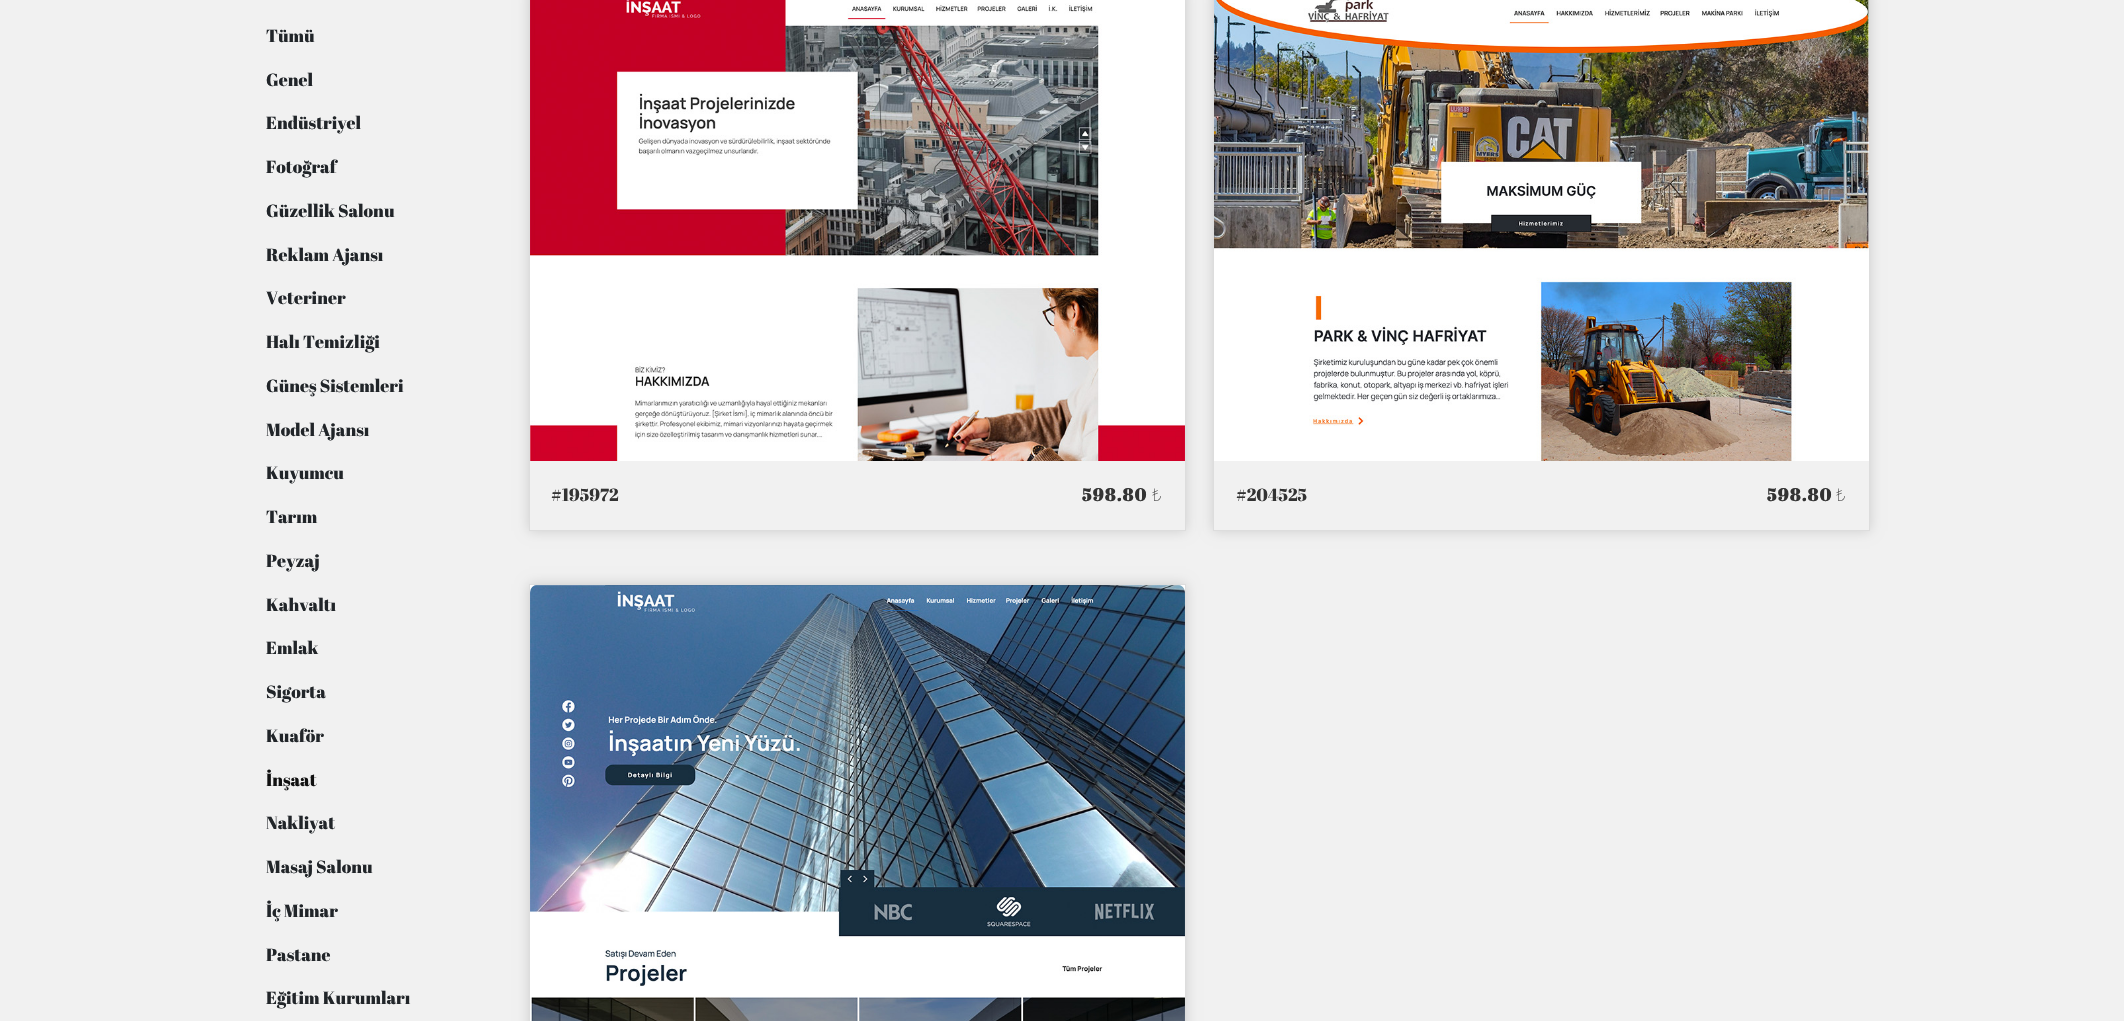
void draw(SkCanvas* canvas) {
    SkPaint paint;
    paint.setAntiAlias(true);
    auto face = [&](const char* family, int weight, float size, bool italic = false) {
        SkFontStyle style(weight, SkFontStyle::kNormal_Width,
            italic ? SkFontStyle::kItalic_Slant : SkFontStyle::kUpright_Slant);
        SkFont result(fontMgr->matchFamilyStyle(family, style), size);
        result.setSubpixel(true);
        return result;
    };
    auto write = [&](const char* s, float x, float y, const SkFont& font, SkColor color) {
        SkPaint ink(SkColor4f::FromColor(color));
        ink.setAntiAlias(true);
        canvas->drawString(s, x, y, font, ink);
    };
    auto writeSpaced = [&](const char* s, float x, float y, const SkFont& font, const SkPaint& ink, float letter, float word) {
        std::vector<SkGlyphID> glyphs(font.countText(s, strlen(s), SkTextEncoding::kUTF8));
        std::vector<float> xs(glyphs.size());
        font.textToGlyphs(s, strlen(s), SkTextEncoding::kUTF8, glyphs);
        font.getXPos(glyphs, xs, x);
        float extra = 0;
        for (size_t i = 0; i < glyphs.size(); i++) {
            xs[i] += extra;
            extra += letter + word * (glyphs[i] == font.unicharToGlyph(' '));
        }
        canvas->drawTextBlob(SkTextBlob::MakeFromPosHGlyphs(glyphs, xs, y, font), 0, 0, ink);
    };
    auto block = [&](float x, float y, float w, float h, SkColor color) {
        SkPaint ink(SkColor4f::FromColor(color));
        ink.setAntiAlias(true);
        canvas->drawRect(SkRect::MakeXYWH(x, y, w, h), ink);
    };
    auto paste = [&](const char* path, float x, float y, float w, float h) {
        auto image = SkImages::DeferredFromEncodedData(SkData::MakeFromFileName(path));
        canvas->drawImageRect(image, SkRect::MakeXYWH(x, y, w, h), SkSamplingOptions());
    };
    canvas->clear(SkColorSetRGB(241, 241, 241));
    auto kFont1 = face("Abril Fatface", 400, 17.5f);
    write("Tümü", 266, 42, kFont1, SkColorSetRGB(33, 37, 41));
    write("Genel", 266, 86, kFont1, SkColorSetRGB(33, 37, 41));
    write("Endüstriyel", 266, 129, kFont1, SkColorSetRGB(33, 37, 41));
    write("Fotoğraf", 266, 173, kFont1, SkColorSetRGB(33, 37, 41));
    write("Güzellik Salonu", 266, 217, kFont1, SkColorSetRGB(33, 37, 41));
    write("Reklam Ajansı", 266, 261, kFont1, SkColorSetRGB(33, 37, 41));
    write("Veteriner", 266, 304, kFont1, SkColorSetRGB(33, 37, 41));
    write("Halı Temizliği", 266, 348, kFont1, SkColorSetRGB(33, 37, 41));
    write("Güneş Sistemleri", 266, 392, kFont1, SkColorSetRGB(33, 37, 41));
    write("Model Ajansı", 266, 436, kFont1, SkColorSetRGB(33, 37, 41));
    write("Kuyumcu", 266, 479, kFont1, SkColorSetRGB(33, 37, 41));
    write("Tarım", 266, 523, kFont1, SkColorSetRGB(33, 37, 41));
    write("Peyzaj", 266, 567, kFont1, SkColorSetRGB(33, 37, 41));
    write("Kahvaltı", 266, 611, kFont1, SkColorSetRGB(33, 37, 41));
    write("Emlak", 266, 654, kFont1, SkColorSetRGB(33, 37, 41));
    write("Sigorta", 266, 698, kFont1, SkColorSetRGB(33, 37, 41));
    write("Kuaför", 266, 742, kFont1, SkColorSetRGB(33, 37, 41));
    write("İnşaat", 266, 786, kFont1, SkColorSetRGB(17, 17, 17));
    write("Nakliyat", 266, 829, kFont1, SkColorSetRGB(33, 37, 41));
    write("Masaj Salonu", 266, 873, kFont1, SkColorSetRGB(33, 37, 41));
    write("İç Mimar", 266, 917, kFont1, SkColorSetRGB(33, 37, 41));
    write("Pastane", 266, 961, kFont1, SkColorSetRGB(33, 37, 41));
    write("Eğitim Kurumları", 266, 1004, kFont1, SkColorSetRGB(33, 37, 41));
    paint.setColor(SkColorSetRGB(204, 204, 204));
    paint.setMaskFilter(SkMaskFilter::MakeBlur(kNormal_SkBlurStyle, 6));
    canvas->drawRect(SkRect::MakeXYWH(529, -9, 657, 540), paint);
    paint.setMaskFilter(nullptr);
    paint.setStyle(SkPaint::kStroke_Style);
    paint.setStrokeWidth(1);
    paint.setColor(SkColorSetRGB(221, 221, 221));
    canvas->drawRect(SkRect::MakeXYWH(529.5f, -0.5f, 656, 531), paint);
    paste("pic1.png", 530, 0, 655, 461);
    block(530, 461, 655, 69, SkColorSetRGB(241, 241, 241));
    write("#195972", 551, 501, kFont1, SkColorSetRGB(51, 51, 51));
    auto kFont2 = face("Abril Fatface", 700, 17.5f);
    paint.setStyle(SkPaint::kFill_Style);
    paint.setColor(SkColorSetRGB(51, 51, 51));
    writeSpaced("598.80", 1082, 501, kFont2, paint, 1.25f, 0);
    auto kFont3 = face("Noto Sans", 100, 17.5f);
    writeSpaced("₺", 1152, 501, kFont3, paint, 1.25f, 0);
    paint.setColor(SkColorSetRGB(204, 204, 204));
    paint.setMaskFilter(SkMaskFilter::MakeBlur(kNormal_SkBlurStyle, 6));
    canvas->drawRect(SkRect::MakeXYWH(1213, -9, 657, 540), paint);
    paint.setMaskFilter(nullptr);
    block(1868, 0, 1, 461, SK_ColorWHITE);
    paint.setStyle(SkPaint::kStroke_Style);
    paint.setColor(SkColorSetRGB(221, 221, 221));
    canvas->drawRect(SkRect::MakeXYWH(1213.5f, -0.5f, 656, 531), paint);
    paste("pic2.png", 1214, 0, 655, 461);
    block(1214, 461, 655, 69, SkColorSetRGB(241, 241, 241));
    write("#204525", 1236, 501, kFont1, SkColorSetRGB(51, 51, 51));
    paint.setStyle(SkPaint::kFill_Style);
    paint.setColor(SkColorSetRGB(51, 51, 51));
    writeSpaced("598.80", 1767, 501, kFont2, paint, 1.25f, 0);
    writeSpaced("₺", 1836, 501, kFont3, paint, 1.25f, 0);
    paint.setColor(SkColorSetRGB(204, 204, 204));
    paint.setMaskFilter(SkMaskFilter::MakeBlur(kNormal_SkBlurStyle, 6));
    canvas->drawRect(SkRect::MakeXYWH(529, 584, 657, 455), paint);
    paint.setMaskFilter(nullptr);
    block(530, 585, 655, 8, SK_ColorWHITE);
    paint.setStyle(SkPaint::kStroke_Style);
    paint.setColor(SkColorSetRGB(221, 221, 221));
    canvas->drawRect(SkRect::MakeXYWH(529.5f, 584.5f, 656, 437), paint);
    paste("pic3.png", 530, 585, 655, 436);
}
